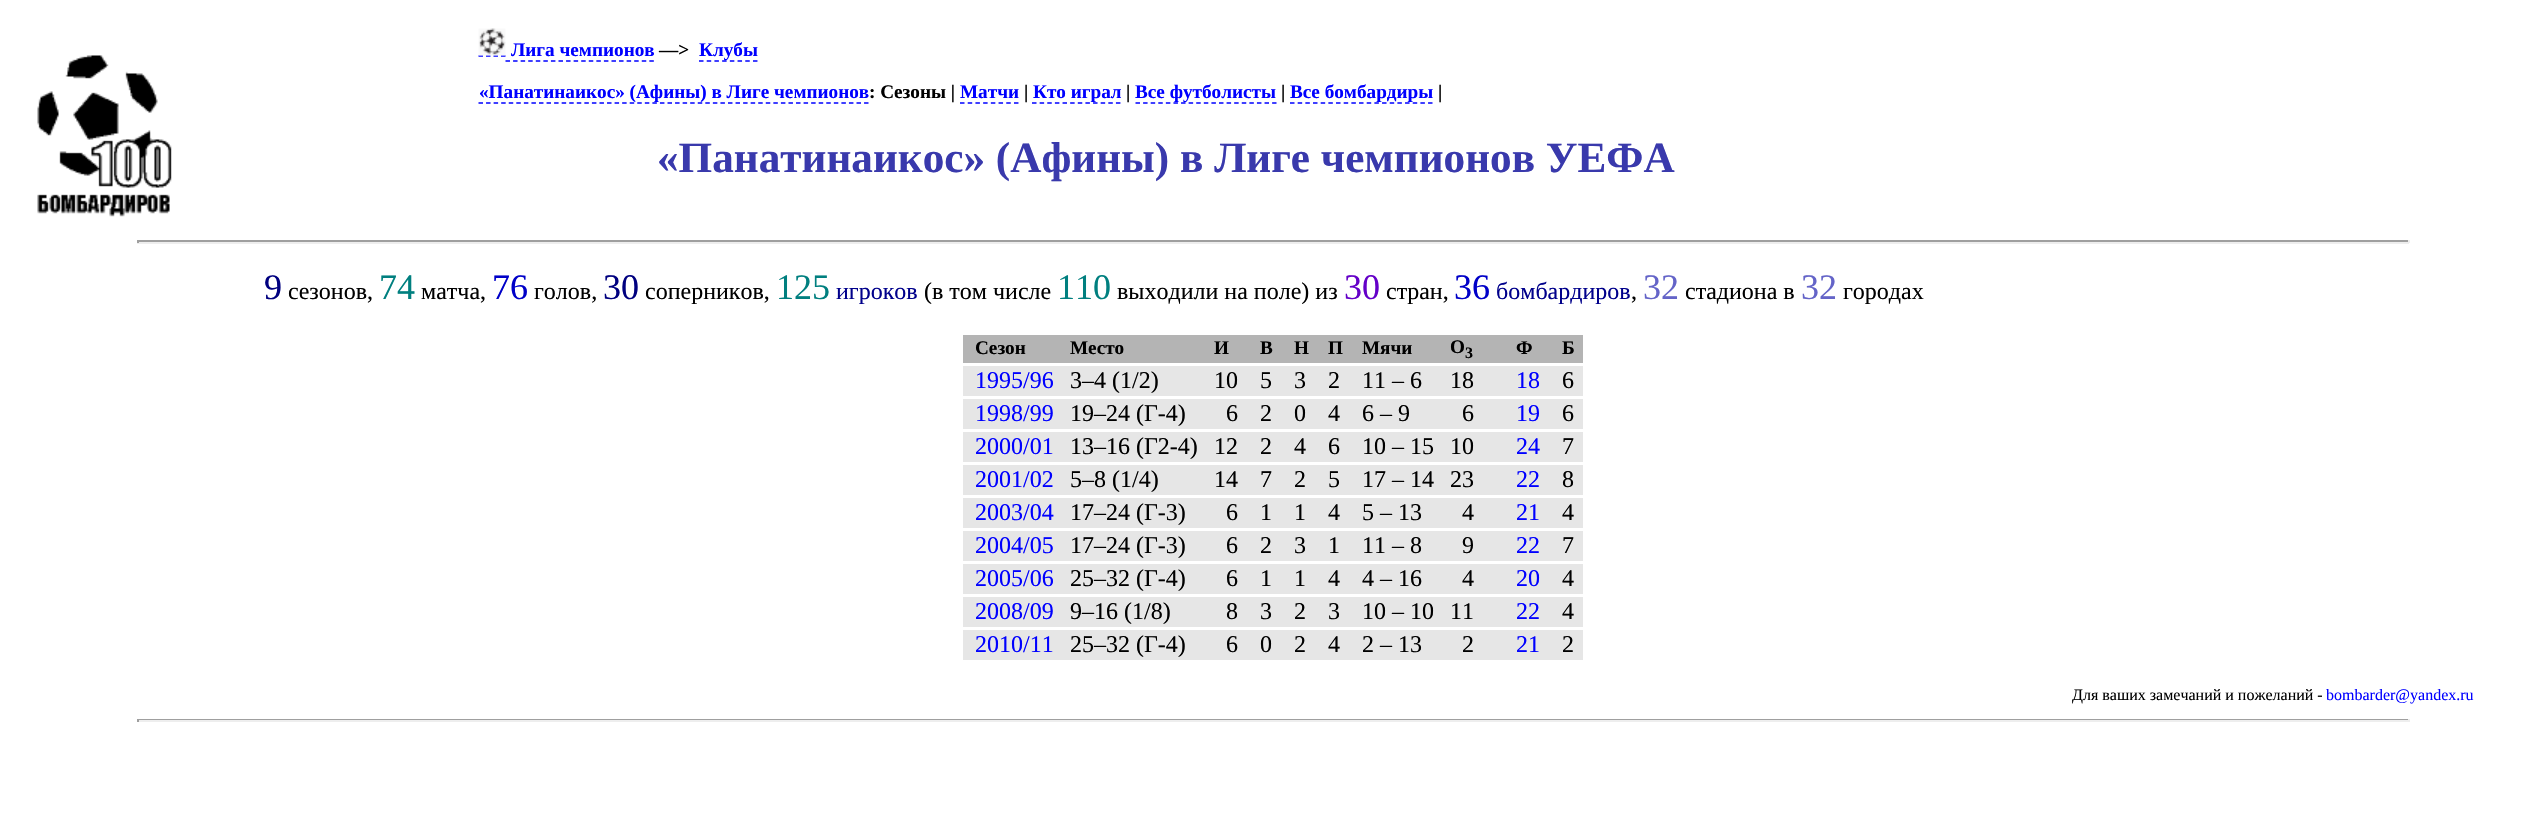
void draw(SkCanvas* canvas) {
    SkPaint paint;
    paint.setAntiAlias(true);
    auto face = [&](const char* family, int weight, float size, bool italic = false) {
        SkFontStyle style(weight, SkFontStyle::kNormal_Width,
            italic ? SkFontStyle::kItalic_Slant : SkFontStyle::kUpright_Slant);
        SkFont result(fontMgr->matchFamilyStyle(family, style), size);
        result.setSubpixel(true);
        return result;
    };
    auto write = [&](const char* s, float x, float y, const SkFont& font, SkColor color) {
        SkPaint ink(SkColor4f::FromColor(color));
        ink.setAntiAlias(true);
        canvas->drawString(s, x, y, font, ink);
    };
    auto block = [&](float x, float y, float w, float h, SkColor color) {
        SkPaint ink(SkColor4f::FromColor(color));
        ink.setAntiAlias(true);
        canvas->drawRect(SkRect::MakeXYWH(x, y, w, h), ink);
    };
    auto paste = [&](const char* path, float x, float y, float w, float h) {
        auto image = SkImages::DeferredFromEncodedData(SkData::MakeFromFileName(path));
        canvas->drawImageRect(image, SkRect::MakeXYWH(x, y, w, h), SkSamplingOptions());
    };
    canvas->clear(SK_ColorWHITE);
    paste("pic1.png", 37, 55, 135, 162);
    paint.setStyle(SkPaint::kStroke_Style);
    paint.setStrokeWidth(1.5f);
    paint.setColor(SkColorSetRGB(0, 0, 255));
    paint.setPathEffect(SkDashPathEffect::Make({{4.5f, 3}}, 0));
    canvas->drawPath(SkPathBuilder().moveTo(478.5f, 56).lineTo(505.5f, 56).detach(), paint);
    paint.setPathEffect(nullptr);
    paste("pic2.png", 478, 28, 28, 28);
    auto kFont1 = face("Liberation Serif", 700, 19.2f);
    write("Лига чемпионов", 511, 56, kFont1, SkColorSetRGB(0, 0, 255));
    paint.setPathEffect(SkDashPathEffect::Make({{4.5f, 3.07f}}, 0));
    canvas->drawPath(SkPathBuilder().moveTo(505.5f, 61).lineTo(654, 61).detach(), paint);
    paint.setPathEffect(nullptr);
    write("—>", 659, 56, kFont1, SK_ColorBLACK);
    paint.setPathEffect(SkDashPathEffect::Make({{4.5f, 3.21f}}, 0));
    canvas->drawPath(SkPathBuilder().moveTo(699, 61).lineTo(757.5f, 61).detach(), paint);
    paint.setPathEffect(nullptr);
    write("Клубы", 699, 56, kFont1, SkColorSetRGB(0, 0, 255));
    paint.setPathEffect(SkDashPathEffect::Make({{4.5f, 3.06f}}, 0));
    canvas->drawPath(SkPathBuilder().moveTo(478.5f, 103).lineTo(868.5f, 103).detach(), paint);
    paint.setPathEffect(nullptr);
    write("«Панатинаикос» (Афины) в Лиге чемпионов", 479, 98, kFont1, SkColorSetRGB(0, 0, 255));
    write(": Сезоны |", 869, 98, kFont1, SK_ColorBLACK);
    write("Матчи", 960, 98, kFont1, SkColorSetRGB(0, 0, 255));
    paint.setPathEffect(SkDashPathEffect::Make({{4.5f, 3.21f}}, 0));
    canvas->drawPath(SkPathBuilder().moveTo(960, 103).lineTo(1018.5f, 103).detach(), paint);
    paint.setPathEffect(nullptr);
    write("|", 1024, 98, kFont1, SK_ColorBLACK);
    paint.setPathEffect(SkDashPathEffect::Make({{4.5f, 3.13f}}, 0));
    canvas->drawPath(SkPathBuilder().moveTo(1032, 103).lineTo(1120.5f, 103).detach(), paint);
    paint.setPathEffect(nullptr);
    write("Кто играл", 1033, 98, kFont1, SkColorSetRGB(0, 0, 255));
    write("|", 1126, 98, kFont1, SK_ColorBLACK);
    paint.setPathEffect(SkDashPathEffect::Make({{4.5f, 3.09f}}, 0));
    canvas->drawPath(SkPathBuilder().moveTo(1135.5f, 103).lineTo(1276.5f, 103).detach(), paint);
    paint.setPathEffect(nullptr);
    write("Все футболисты", 1135, 98, kFont1, SkColorSetRGB(0, 0, 255));
    write("|", 1281, 98, kFont1, SK_ColorBLACK);
    paint.setPathEffect(SkDashPathEffect::Make({{4.5f, 3.17f}}, 0));
    canvas->drawPath(SkPathBuilder().moveTo(1290, 103).lineTo(1432.5f, 103).detach(), paint);
    paint.setPathEffect(nullptr);
    write("Все бомбардиры", 1290, 98, kFont1, SkColorSetRGB(0, 0, 255));
    write("|", 1438, 98, kFont1, SK_ColorBLACK);
    auto kFont2 = face("Liberation Serif", 700, 43.2f);
    write("«Панатинаикос» (Афины) в Лиге чемпионов УЕФА", 657, 172, kFont2, SkColorSetRGB(57, 57, 172));
    block(137, 240, 2272, 2, SkColorSetRGB(159, 159, 159));
    block(2408, 240, 2, 3, SkColorSetRGB(238, 238, 238));
    block(137, 242, 2272, 2, SkColorSetRGB(238, 238, 238));
    block(137, 240, 2, 3, SkColorSetRGB(159, 159, 159));
    auto kFont3 = face("Liberation Serif", 400, 36);
    write("9", 264, 299, kFont3, SkColorSetRGB(0, 0, 127));
    auto kFont4 = face("Liberation Serif", 400, 24);
    write("сезонов,", 288, 299, kFont4, SK_ColorBLACK);
    write("74", 379, 299, kFont3, SkColorSetRGB(0, 127, 127));
    write("матча,", 421, 299, kFont4, SK_ColorBLACK);
    write("76", 492, 299, kFont3, SkColorSetRGB(0, 0, 200));
    write("голов,", 534, 299, kFont4, SK_ColorBLACK);
    write("30", 603, 299, kFont3, SkColorSetRGB(0, 0, 127));
    write("соперников,", 645, 299, kFont4, SK_ColorBLACK);
    write("125", 776, 299, kFont3, SkColorSetRGB(0, 127, 127));
    write("игроков", 836, 299, kFont4, SkColorSetRGB(0, 0, 139));
    write("(в том числе", 924, 299, kFont4, SK_ColorBLACK);
    write("110", 1057, 299, kFont3, SkColorSetRGB(0, 127, 127));
    write("выходили на поле) из", 1117, 299, kFont4, SK_ColorBLACK);
    write("30", 1344, 299, kFont3, SkColorSetRGB(100, 0, 200));
    write("стран,", 1386, 299, kFont4, SK_ColorBLACK);
    write("36", 1454, 299, kFont3, SkColorSetRGB(0, 0, 200));
    write("бомбардиров", 1496, 299, kFont4, SkColorSetRGB(0, 0, 139));
    write(",", 1631, 299, kFont4, SK_ColorBLACK);
    write("32", 1643, 299, kFont3, SkColorSetRGB(100, 100, 200));
    write("стадиона в", 1685, 299, kFont4, SK_ColorBLACK);
    write("32", 1801, 299, kFont3, SkColorSetRGB(100, 100, 200));
    write("городах", 1843, 299, kFont4, SK_ColorBLACK);
    block(963, 335, 620, 28, SkColorSetRGB(180, 180, 180));
    write("Сезон", 975, 354, kFont1, SK_ColorBLACK);
    write("Место", 1070, 354, kFont1, SK_ColorBLACK);
    write("И", 1214, 354, kFont1, SK_ColorBLACK);
    write("В", 1260, 354, kFont1, SK_ColorBLACK);
    write("Н", 1294, 354, kFont1, SK_ColorBLACK);
    write("П", 1328, 354, kFont1, SK_ColorBLACK);
    write("Мячи", 1362, 354, kFont1, SK_ColorBLACK);
    write("О", 1450, 353, kFont1, SK_ColorBLACK);
    auto kFont5 = face("Liberation Serif", 700, 16);
    write("3", 1465, 358, kFont5, SK_ColorBLACK);
    write("Ф", 1516, 354, kFont1, SK_ColorBLACK);
    write("Б", 1562, 354, kFont1, SK_ColorBLACK);
    block(963, 366, 620, 30, SkColorSetRGB(230, 230, 230));
    write("1995/96", 975, 388, kFont4, SkColorSetRGB(0, 0, 255));
    write("3–4 (1/2)", 1070, 388, kFont4, SK_ColorBLACK);
    write("10", 1214, 388, kFont4, SK_ColorBLACK);
    write("5", 1260, 388, kFont4, SK_ColorBLACK);
    write("3", 1294, 388, kFont4, SK_ColorBLACK);
    write("2", 1328, 388, kFont4, SK_ColorBLACK);
    write("11 – 6", 1362, 388, kFont4, SK_ColorBLACK);
    write("18", 1450, 388, kFont4, SK_ColorBLACK);
    write("18", 1516, 388, kFont4, SkColorSetRGB(0, 0, 255));
    write("6", 1562, 388, kFont4, SK_ColorBLACK);
    block(963, 399, 620, 30, SkColorSetRGB(230, 230, 230));
    write("1998/99", 975, 421, kFont4, SkColorSetRGB(0, 0, 255));
    write("19–24 (Г-4)", 1070, 421, kFont4, SK_ColorBLACK);
    write("6", 1226, 421, kFont4, SK_ColorBLACK);
    write("2", 1260, 421, kFont4, SK_ColorBLACK);
    write("0", 1294, 421, kFont4, SK_ColorBLACK);
    write("4", 1328, 421, kFont4, SK_ColorBLACK);
    write("6 – 9", 1362, 421, kFont4, SK_ColorBLACK);
    write("6", 1462, 421, kFont4, SK_ColorBLACK);
    write("19", 1516, 421, kFont4, SkColorSetRGB(0, 0, 255));
    write("6", 1562, 421, kFont4, SK_ColorBLACK);
    block(963, 432, 620, 30, SkColorSetRGB(230, 230, 230));
    write("2000/01", 975, 454, kFont4, SkColorSetRGB(0, 0, 255));
    write("13–16 (Г2-4)", 1070, 454, kFont4, SK_ColorBLACK);
    write("12", 1214, 454, kFont4, SK_ColorBLACK);
    write("2", 1260, 454, kFont4, SK_ColorBLACK);
    write("4", 1294, 454, kFont4, SK_ColorBLACK);
    write("6", 1328, 454, kFont4, SK_ColorBLACK);
    write("10 – 15", 1362, 454, kFont4, SK_ColorBLACK);
    write("10", 1450, 454, kFont4, SK_ColorBLACK);
    write("24", 1516, 454, kFont4, SkColorSetRGB(0, 0, 255));
    write("7", 1562, 454, kFont4, SK_ColorBLACK);
    block(963, 465, 620, 30, SkColorSetRGB(230, 230, 230));
    write("2001/02", 975, 487, kFont4, SkColorSetRGB(0, 0, 255));
    write("5–8 (1/4)", 1070, 487, kFont4, SK_ColorBLACK);
    write("14", 1214, 487, kFont4, SK_ColorBLACK);
    write("7", 1260, 487, kFont4, SK_ColorBLACK);
    write("2", 1294, 487, kFont4, SK_ColorBLACK);
    write("5", 1328, 487, kFont4, SK_ColorBLACK);
    write("17 – 14", 1362, 487, kFont4, SK_ColorBLACK);
    write("23", 1450, 487, kFont4, SK_ColorBLACK);
    write("22", 1516, 487, kFont4, SkColorSetRGB(0, 0, 255));
    write("8", 1562, 487, kFont4, SK_ColorBLACK);
    block(963, 498, 620, 30, SkColorSetRGB(230, 230, 230));
    write("2003/04", 975, 520, kFont4, SkColorSetRGB(0, 0, 255));
    write("17–24 (Г-3)", 1070, 520, kFont4, SK_ColorBLACK);
    write("6", 1226, 520, kFont4, SK_ColorBLACK);
    write("1", 1260, 520, kFont4, SK_ColorBLACK);
    write("1", 1294, 520, kFont4, SK_ColorBLACK);
    write("4", 1328, 520, kFont4, SK_ColorBLACK);
    write("5 – 13", 1362, 520, kFont4, SK_ColorBLACK);
    write("4", 1462, 520, kFont4, SK_ColorBLACK);
    write("21", 1516, 520, kFont4, SkColorSetRGB(0, 0, 255));
    write("4", 1562, 520, kFont4, SK_ColorBLACK);
    block(963, 531, 620, 30, SkColorSetRGB(230, 230, 230));
    write("2004/05", 975, 553, kFont4, SkColorSetRGB(0, 0, 255));
    write("17–24 (Г-3)", 1070, 553, kFont4, SK_ColorBLACK);
    write("6", 1226, 553, kFont4, SK_ColorBLACK);
    write("2", 1260, 553, kFont4, SK_ColorBLACK);
    write("3", 1294, 553, kFont4, SK_ColorBLACK);
    write("1", 1328, 553, kFont4, SK_ColorBLACK);
    write("11 – 8", 1362, 553, kFont4, SK_ColorBLACK);
    write("9", 1462, 553, kFont4, SK_ColorBLACK);
    write("22", 1516, 553, kFont4, SkColorSetRGB(0, 0, 255));
    write("7", 1562, 553, kFont4, SK_ColorBLACK);
    block(963, 564, 620, 30, SkColorSetRGB(230, 230, 230));
    write("2005/06", 975, 586, kFont4, SkColorSetRGB(0, 0, 255));
    write("25–32 (Г-4)", 1070, 586, kFont4, SK_ColorBLACK);
    write("6", 1226, 586, kFont4, SK_ColorBLACK);
    write("1", 1260, 586, kFont4, SK_ColorBLACK);
    write("1", 1294, 586, kFont4, SK_ColorBLACK);
    write("4", 1328, 586, kFont4, SK_ColorBLACK);
    write("4 – 16", 1362, 586, kFont4, SK_ColorBLACK);
    write("4", 1462, 586, kFont4, SK_ColorBLACK);
    write("20", 1516, 586, kFont4, SkColorSetRGB(0, 0, 255));
    write("4", 1562, 586, kFont4, SK_ColorBLACK);
    block(963, 597, 620, 30, SkColorSetRGB(230, 230, 230));
    write("2008/09", 975, 619, kFont4, SkColorSetRGB(0, 0, 255));
    write("9–16 (1/8)", 1070, 619, kFont4, SK_ColorBLACK);
    write("8", 1226, 619, kFont4, SK_ColorBLACK);
    write("3", 1260, 619, kFont4, SK_ColorBLACK);
    write("2", 1294, 619, kFont4, SK_ColorBLACK);
    write("3", 1328, 619, kFont4, SK_ColorBLACK);
    write("10 – 10", 1362, 619, kFont4, SK_ColorBLACK);
    write("11", 1450, 619, kFont4, SK_ColorBLACK);
    write("22", 1516, 619, kFont4, SkColorSetRGB(0, 0, 255));
    write("4", 1562, 619, kFont4, SK_ColorBLACK);
    block(963, 630, 620, 30, SkColorSetRGB(230, 230, 230));
    write("2010/11", 975, 652, kFont4, SkColorSetRGB(0, 0, 255));
    write("25–32 (Г-4)", 1070, 652, kFont4, SK_ColorBLACK);
    write("6", 1226, 652, kFont4, SK_ColorBLACK);
    write("0", 1260, 652, kFont4, SK_ColorBLACK);
    write("2", 1294, 652, kFont4, SK_ColorBLACK);
    write("4", 1328, 652, kFont4, SK_ColorBLACK);
    write("2 – 13", 1362, 652, kFont4, SK_ColorBLACK);
    write("2", 1462, 652, kFont4, SK_ColorBLACK);
    write("21", 1516, 652, kFont4, SkColorSetRGB(0, 0, 255));
    write("2", 1562, 652, kFont4, SK_ColorBLACK);
    auto kFont6 = face("Liberation Serif", 400, 16);
    write("Для ваших замечаний и пожеланий -", 2072, 700, kFont6, SK_ColorBLACK);
    write("bombarder@yandex.ru", 2326, 700, kFont6, SkColorSetRGB(0, 0, 255));
    block(137, 719, 2272, 1, SkColorSetRGB(159, 159, 159));
    block(2408, 719, 2, 3, SkColorSetRGB(238, 238, 238));
    block(137, 720, 2272, 2, SkColorSetRGB(238, 238, 238));
    block(137, 719, 2, 3, SkColorSetRGB(159, 159, 159));
}
